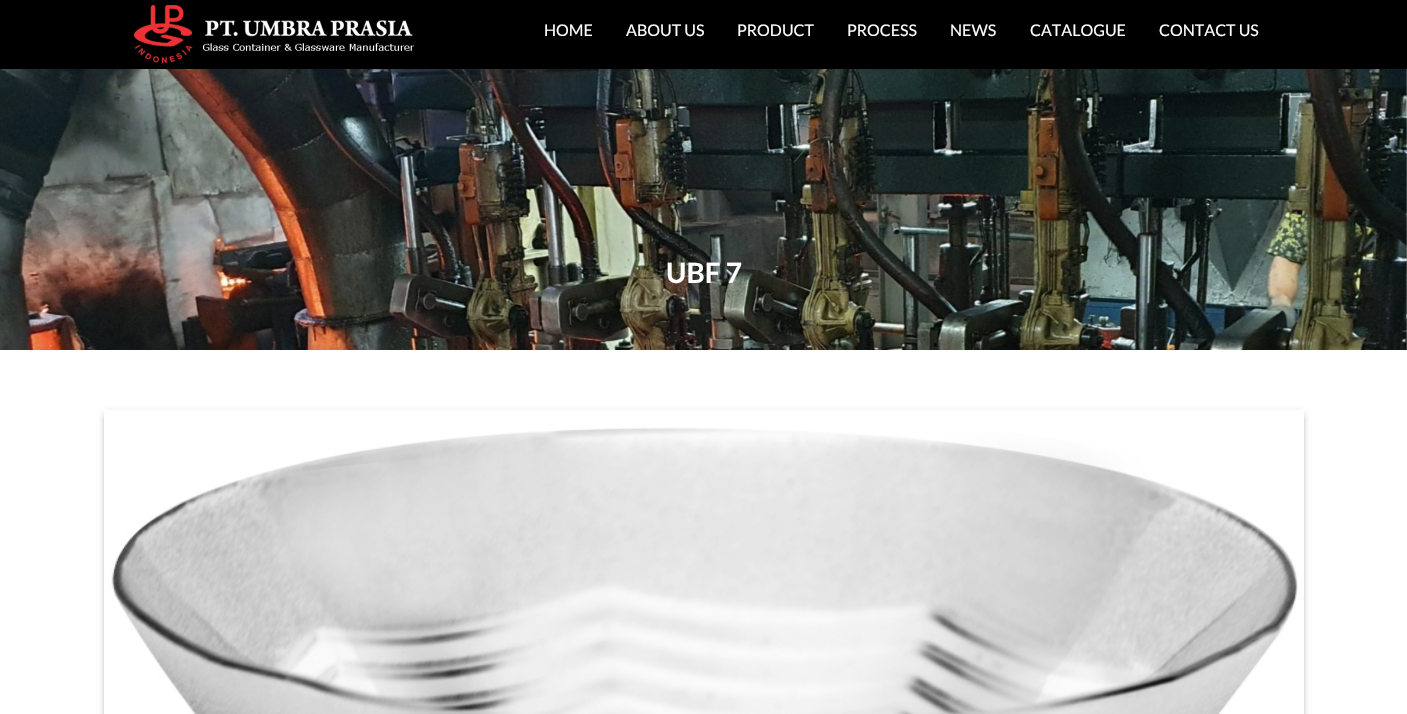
void draw(SkCanvas* canvas) {
    SkPaint paint;
    paint.setAntiAlias(true);
    auto face = [&](const char* family, int weight, float size, bool italic = false) {
        SkFontStyle style(weight, SkFontStyle::kNormal_Width,
            italic ? SkFontStyle::kItalic_Slant : SkFontStyle::kUpright_Slant);
        SkFont result(fontMgr->matchFamilyStyle(family, style), size);
        result.setSubpixel(true);
        return result;
    };
    auto write = [&](const char* s, float x, float y, const SkFont& font, SkColor color) {
        SkPaint ink(SkColor4f::FromColor(color));
        ink.setAntiAlias(true);
        canvas->drawString(s, x, y, font, ink);
    };
    auto block = [&](float x, float y, float w, float h, SkColor color) {
        SkPaint ink(SkColor4f::FromColor(color));
        ink.setAntiAlias(true);
        canvas->drawRect(SkRect::MakeXYWH(x, y, w, h), ink);
    };
    auto paste = [&](const char* path, float x, float y, float w, float h) {
        auto image = SkImages::DeferredFromEncodedData(SkData::MakeFromFileName(path));
        canvas->drawImageRect(image, SkRect::MakeXYWH(x, y, w, h), SkSamplingOptions());
    };
    canvas->clear(SK_ColorWHITE);
    block(0, 0, 1407, 69, SK_ColorBLACK);
    paste("pic1.png", 134, 5, 281, 58);
    auto kFont1 = face("Lato", 400, 16);
    write("HOME", 544, 36, kFont1, SK_ColorWHITE);
    write("ABOUT US", 626, 36, kFont1, SK_ColorWHITE);
    write("PRODUCT", 737, 36, kFont1, SK_ColorWHITE);
    write("PROCESS", 847, 36, kFont1, SK_ColorWHITE);
    write("NEWS", 950, 36, kFont1, SK_ColorWHITE);
    write("CATALOGUE", 1030, 36, kFont1, SK_ColorWHITE);
    write("CONTACT US", 1159, 36, kFont1, SK_ColorWHITE);
    paste("pic2.png", 0, 69, 1407, 281);
    auto kFont2 = face("Lato", 700, 28);
    write("UBF 7", 666, 283, kFont2, SK_ColorWHITE);
    paint.setColor(SkColorSetARGB(33, 0, 0, 0));
    paint.setMaskFilter(SkMaskFilter::MakeBlur(kNormal_SkBlurStyle, 3));
    canvas->drawRoundRect(SkRect::MakeXYWH(104, 412, 1200, 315), 4, 4, paint);
    paint.setMaskFilter(nullptr);
    paint.setMaskFilter(SkMaskFilter::MakeBlur(kNormal_SkBlurStyle, 2));
    canvas->drawRect(SkRect::MakeXYWH(104, 416, 1192, 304), paint);
    paint.setMaskFilter(nullptr);
    paint.setMaskFilter(SkMaskFilter::MakeBlur(kNormal_SkBlurStyle, 2));
    canvas->drawRect(SkRect::MakeXYWH(112, 416, 1192, 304), paint);
    paint.setMaskFilter(nullptr);
    paste("pic3.png", 104, 410, 1200, 304);
}
